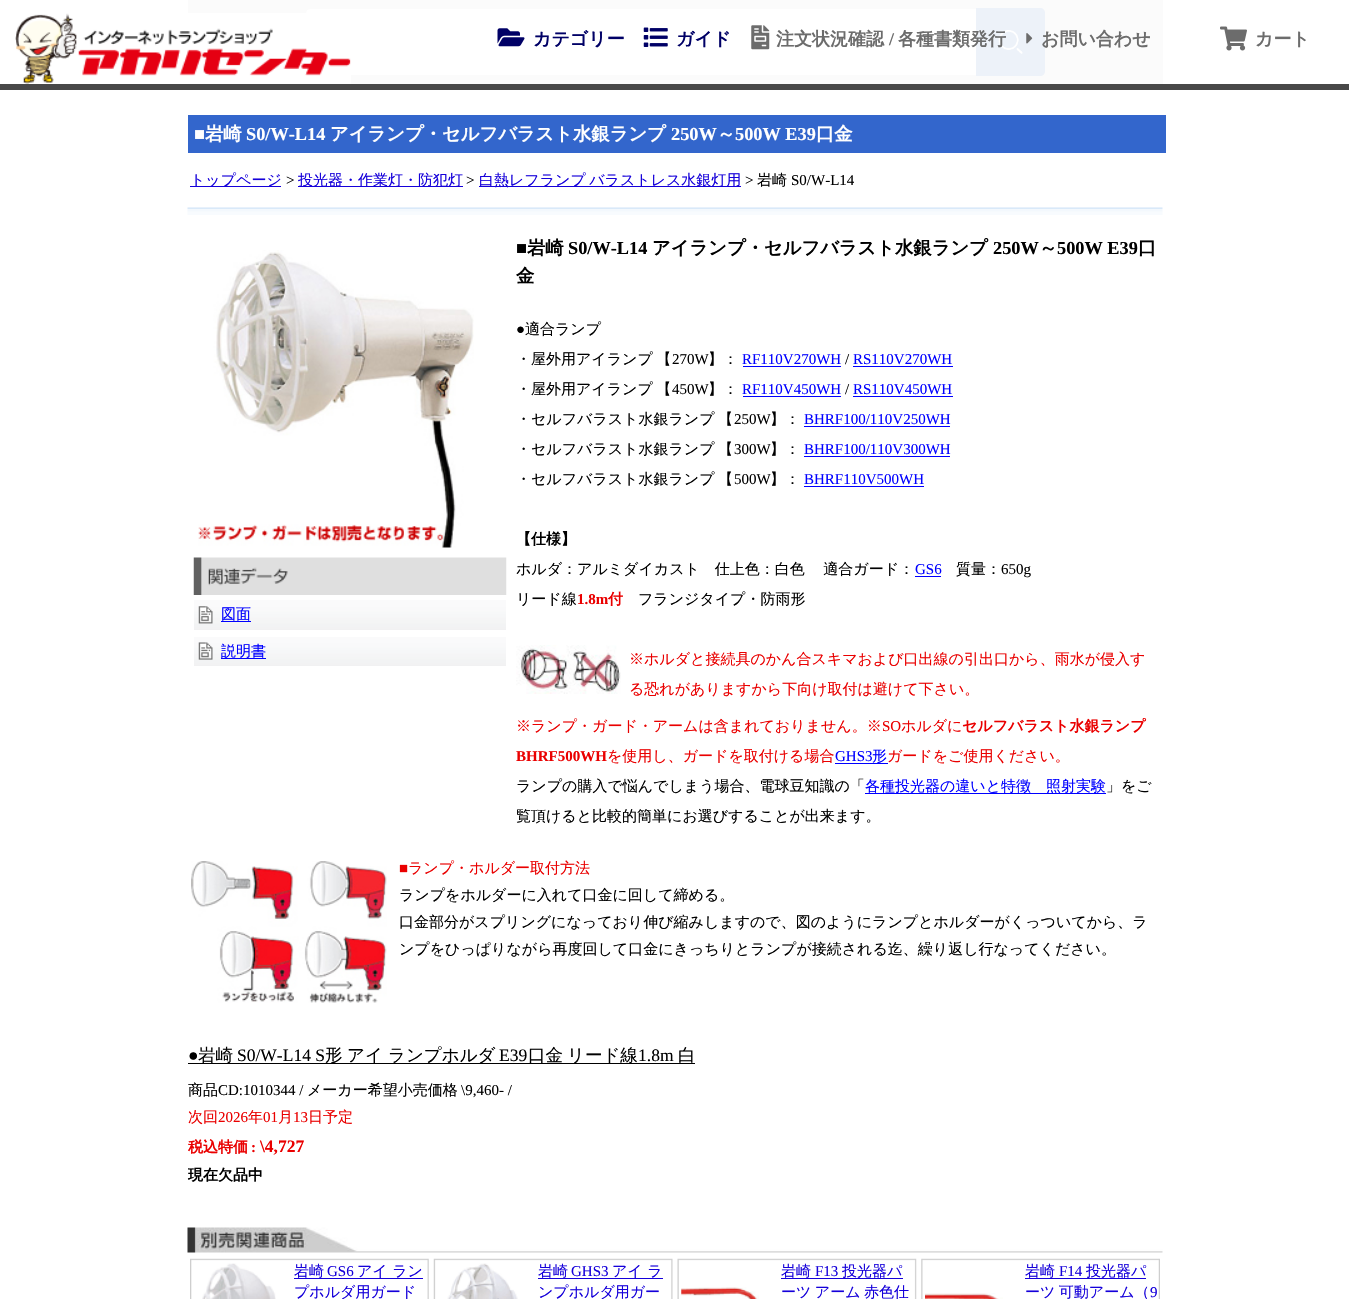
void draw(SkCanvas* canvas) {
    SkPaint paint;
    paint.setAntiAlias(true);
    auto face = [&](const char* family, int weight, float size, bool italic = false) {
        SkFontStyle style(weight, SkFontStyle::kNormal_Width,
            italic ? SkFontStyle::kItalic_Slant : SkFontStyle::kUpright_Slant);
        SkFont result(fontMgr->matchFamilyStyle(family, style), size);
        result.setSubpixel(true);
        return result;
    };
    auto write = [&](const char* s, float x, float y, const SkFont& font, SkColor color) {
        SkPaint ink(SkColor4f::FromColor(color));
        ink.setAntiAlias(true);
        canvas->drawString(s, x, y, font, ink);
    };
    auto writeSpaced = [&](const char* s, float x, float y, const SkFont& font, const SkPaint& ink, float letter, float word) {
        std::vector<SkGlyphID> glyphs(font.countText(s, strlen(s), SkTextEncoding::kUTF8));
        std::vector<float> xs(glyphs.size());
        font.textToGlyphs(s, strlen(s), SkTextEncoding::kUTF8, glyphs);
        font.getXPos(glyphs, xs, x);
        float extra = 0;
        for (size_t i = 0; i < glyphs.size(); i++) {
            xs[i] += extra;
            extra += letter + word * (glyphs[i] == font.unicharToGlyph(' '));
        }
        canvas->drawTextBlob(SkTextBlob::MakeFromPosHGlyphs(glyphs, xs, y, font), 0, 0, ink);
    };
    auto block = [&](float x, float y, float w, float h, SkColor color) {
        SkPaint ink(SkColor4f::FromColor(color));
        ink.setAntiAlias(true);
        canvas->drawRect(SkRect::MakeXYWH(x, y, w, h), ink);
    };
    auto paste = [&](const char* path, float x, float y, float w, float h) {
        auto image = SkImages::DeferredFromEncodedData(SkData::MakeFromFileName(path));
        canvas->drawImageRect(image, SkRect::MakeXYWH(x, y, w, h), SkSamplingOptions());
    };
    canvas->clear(SK_ColorWHITE);
    block(188, 0, 975, 84, SkColorSetRGB(251, 251, 251));
    paint.setColor(SK_ColorWHITE);
    canvas->drawRoundRect(SkRect::MakeXYWH(305.5f, 8.5f, 739, 67), 4.5f, 4.5f, paint);
    paint.setStyle(SkPaint::kStroke_Style);
    paint.setStrokeWidth(1);
    paint.setColor(SkColorSetRGB(251, 251, 251));
    canvas->drawRoundRect(SkRect::MakeXYWH(305.5f, 8.5f, 739, 67), 4.5f, 4.5f, paint);
    paint.setStyle(SkPaint::kFill_Style);
    paint.setColor(SkColorSetRGB(237, 242, 249));
    canvas->drawPath(SkPathBuilder().moveTo(976, 8).lineTo(1040, 8).cubicTo(1043, 8, 1045, 10, 1045, 13).lineTo(1045, 71).cubicTo(1045, 74, 1043, 76, 1040, 76).lineTo(976, 76).close().detach(), paint);
    paste("pic1.png", 998, 30, 25, 24);
    block(0, 84, 1349, 6, SkColorSetRGB(72, 72, 72));
    paste("pic2.png", 15, 13, 336, 71);
    paste("pic3.png", 497, 28, 28, 19);
    auto kFont1 = face("WenQuanYi Zen Hei", 700, 18);
    write("カテゴリー", 533, 45, kFont1, SkColorSetRGB(0, 0, 102));
    paste("pic4.png", 643, 27, 25, 20);
    write("ガイド", 676, 45, kFont1, SkColorSetRGB(0, 0, 102));
    paste("pic5.png", 751, 25, 19, 25);
    write("注文状況確認", 776, 45, kFont1, SkColorSetRGB(108, 108, 108));
    auto kFont2 = face("Liberation Serif", 700, 18);
    write("/", 889, 45, kFont2, SkColorSetRGB(108, 108, 108));
    write("各種書類発行", 898, 45, kFont1, SkColorSetRGB(108, 108, 108));
    paste("pic6.png", 1026, 33, 7, 11);
    write("お問い合わせ", 1041, 45, kFont1, SkColorSetRGB(108, 108, 108));
    paste("pic7.png", 1220, 26, 27, 25);
    write("カート", 1255, 45, kFont1, SkColorSetRGB(108, 108, 108));
    paste("pic8.png", 187, 207, 976, 8);
    block(188, 115, 978, 38, SkColorSetRGB(51, 102, 204));
    auto kFont3 = face("Liberation Serif", 700, 18.3f);
    write("■", 194, 140, kFont3, SK_ColorWHITE);
    auto kFont4 = face("WenQuanYi Zen Hei", 700, 18.3f);
    write("岩崎", 205, 140, kFont4, SK_ColorWHITE);
    write("S0/W-L14", 246, 140, kFont3, SK_ColorWHITE);
    write("アイランプ・セルフバラスト水銀ランプ", 330, 140, kFont4, SK_ColorWHITE);
    write("250W", 671, 140, kFont3, SK_ColorWHITE);
    write("～", 717, 140, kFont4, SK_ColorWHITE);
    write("500W E39", 735, 140, kFont3, SK_ColorWHITE);
    write("口金", 816, 140, kFont4, SK_ColorWHITE);
    block(190, 186, 91, 1, SkColorSetRGB(21, 0, 218));
    auto kFont5 = face("WenQuanYi Zen Hei", 500, 15);
    write("トップページ", 190, 185, kFont5, SkColorSetRGB(21, 0, 218));
    auto kFont6 = face("Liberation Serif", 400, 15);
    write(">", 286, 185, kFont6, SK_ColorBLACK);
    block(298, 186, 165, 1, SkColorSetRGB(21, 0, 218));
    write("投光器・作業灯・防犯灯", 298, 185, kFont5, SkColorSetRGB(21, 0, 218));
    write(">", 466, 185, kFont6, SK_ColorBLACK);
    block(479, 186, 262, 1, SkColorSetRGB(21, 0, 218));
    paint.setColor(SkColorSetRGB(21, 0, 218));
    writeSpaced("白熱レフランプ バラストレス水銀灯用", 479, 185, kFont5, paint, 0, -1);
    write(">", 745, 185, kFont6, SK_ColorBLACK);
    write("岩崎", 757, 185, kFont5, SK_ColorBLACK);
    write("S0/W-L14", 791, 185, kFont6, SK_ColorBLACK);
    paste("pic9.png", 198, 250, 276, 298);
    paste("pic10.png", 193, 557, 314, 38);
    paste("pic11.png", 194, 600, 312, 30);
    write("図面", 221, 619, kFont5, SkColorSetRGB(0, 0, 255));
    block(221, 621, 30, 1, SkColorSetRGB(0, 0, 255));
    paste("pic12.png", 194, 637, 312, 29);
    write("説明書", 221, 656, kFont5, SkColorSetRGB(0, 0, 255));
    block(221, 658, 45, 1, SkColorSetRGB(0, 0, 255));
    write("■", 516, 254, kFont3, SK_ColorBLACK);
    write("岩崎", 527, 254, kFont4, SK_ColorBLACK);
    write("S0/W-L14", 568, 254, kFont3, SK_ColorBLACK);
    write("アイランプ・セルフバラスト水銀ランプ", 652, 254, kFont4, SK_ColorBLACK);
    write("250W", 993, 254, kFont3, SK_ColorBLACK);
    write("～", 1039, 254, kFont4, SK_ColorBLACK);
    write("500W E39", 1057, 254, kFont3, SK_ColorBLACK);
    write("口", 1138, 254, kFont4, SK_ColorBLACK);
    write("金", 516, 282, kFont4, SK_ColorBLACK);
    write("●", 516, 334, kFont6, SK_ColorBLACK);
    write("適合ランプ", 525, 334, kFont5, SK_ColorBLACK);
    paint.setColor(SK_ColorBLACK);
    writeSpaced("・屋外用アイランプ 【", 516, 364, kFont5, paint, 0, -1);
    write("270W", 672, 364, kFont6, SK_ColorBLACK);
    write("】：", 708, 364, kFont5, SK_ColorBLACK);
    write("RF110V270WH", 742, 364, kFont6, SkColorSetRGB(0, 0, 255));
    block(743, 366, 98, 1, SkColorSetRGB(0, 0, 255));
    write("/", 845, 364, kFont6, SK_ColorBLACK);
    write("RS110V270WH", 853, 364, kFont6, SkColorSetRGB(0, 0, 255));
    block(853, 366, 100, 1, SkColorSetRGB(0, 0, 255));
    writeSpaced("・屋外用アイランプ 【", 516, 394, kFont5, paint, 0, -1);
    write("450W", 672, 394, kFont6, SK_ColorBLACK);
    write("】：", 708, 394, kFont5, SK_ColorBLACK);
    write("RF110V450WH", 742, 394, kFont6, SkColorSetRGB(0, 0, 255));
    block(743, 396, 98, 1, SkColorSetRGB(0, 0, 255));
    write("/", 845, 394, kFont6, SK_ColorBLACK);
    write("RS110V450WH", 853, 394, kFont6, SkColorSetRGB(0, 0, 255));
    block(853, 396, 100, 1, SkColorSetRGB(0, 0, 255));
    writeSpaced("・セルフバラスト水銀ランプ 【", 516, 424, kFont5, paint, 0, -1);
    write("250W", 734, 424, kFont6, SK_ColorBLACK);
    write("】：", 770, 424, kFont5, SK_ColorBLACK);
    write("BHRF100/110V250WH", 804, 424, kFont6, SkColorSetRGB(0, 0, 255));
    block(804, 426, 146, 1, SkColorSetRGB(0, 0, 255));
    writeSpaced("・セルフバラスト水銀ランプ 【", 516, 454, kFont5, paint, 0, -1);
    write("300W", 734, 454, kFont6, SK_ColorBLACK);
    write("】：", 770, 454, kFont5, SK_ColorBLACK);
    write("BHRF100/110V300WH", 804, 454, kFont6, SkColorSetRGB(0, 0, 255));
    block(804, 456, 146, 1, SkColorSetRGB(0, 0, 255));
    writeSpaced("・セルフバラスト水銀ランプ 【", 516, 484, kFont5, paint, 0, -1);
    write("500W", 734, 484, kFont6, SK_ColorBLACK);
    write("】：", 770, 484, kFont5, SK_ColorBLACK);
    write("BHRF110V500WH", 804, 484, kFont6, SkColorSetRGB(0, 0, 255));
    block(804, 486, 120, 1, SkColorSetRGB(0, 0, 255));
    auto kFont7 = face("WenQuanYi Zen Hei", 700, 15);
    write("【仕様】", 516, 544, kFont7, SK_ColorBLACK);
    writeSpaced("ホルダ：アルミダイカスト　仕上色：白色　 適合ガード：", 516, 574, kFont5, paint, 0, -1);
    write("GS6", 915, 574, kFont6, SkColorSetRGB(0, 0, 255));
    block(915, 576, 26, 1, SkColorSetRGB(0, 0, 255));
    write("質量：", 956, 574, kFont5, SK_ColorBLACK);
    write("650g", 1001, 574, kFont6, SK_ColorBLACK);
    write("リード線", 516, 604, kFont5, SK_ColorBLACK);
    auto kFont8 = face("Liberation Serif", 700, 15);
    write("1.8m", 577, 604, kFont8, SkColorSetRGB(234, 0, 0));
    write("付", 608, 604, kFont7, SkColorSetRGB(234, 0, 0));
    write("フランジタイプ・防雨形", 638, 604, kFont5, SK_ColorBLACK);
    paste("pic13.png", 516, 645, 105, 49);
    write("※ホルダと接続具のかん合スキマおよび口出線の引出口から、雨水が侵入す", 629, 664, kFont5, SkColorSetRGB(234, 0, 0));
    write("る恐れがありますから下向け取付は避けて下さい。", 629, 694, kFont5, SkColorSetRGB(234, 0, 0));
    write("※ランプ・ガード・アームは含まれておりません。※", 516, 731, kFont5, SkColorSetRGB(234, 0, 0));
    write("SO", 882, 731, kFont6, SkColorSetRGB(234, 0, 0));
    write("ホルダに", 901, 731, kFont5, SkColorSetRGB(234, 0, 0));
    write("セルフバラスト水銀ランプ", 962, 731, kFont7, SkColorSetRGB(234, 0, 0));
    write("BHRF500WH", 516, 761, kFont8, SkColorSetRGB(234, 0, 0));
    write("を使用し、ガードを取付ける場合", 607, 761, kFont5, SkColorSetRGB(234, 0, 0));
    write("GHS3", 835, 761, kFont6, SkColorSetRGB(0, 0, 255));
    block(835, 763, 53, 1, SkColorSetRGB(0, 0, 255));
    write("形", 872, 761, kFont5, SkColorSetRGB(0, 0, 255));
    write("ガードをご使用ください。", 887, 761, kFont5, SkColorSetRGB(234, 0, 0));
    write("ランプの購入で悩んでしまう場合、電球豆知識の「", 516, 791, kFont5, SK_ColorBLACK);
    block(865, 793, 241, 1, SkColorSetRGB(0, 0, 255));
    write("各種投光器の違いと特徴　照射実験", 865, 791, kFont5, SkColorSetRGB(0, 0, 255));
    write("」をご", 1106, 791, kFont5, SK_ColorBLACK);
    write("覧頂けると比較的簡単にお選びすることが出来ます。", 516, 821, kFont5, SK_ColorBLACK);
    paste("pic14.png", 191, 861, 196, 142);
    write("■", 399, 873, kFont6, SkColorSetRGB(234, 0, 0));
    write("ランプ・ホルダー取付方法", 408, 873, kFont5, SkColorSetRGB(234, 0, 0));
    write("ランプをホルダーに入れて口金に回して締める。", 399, 900, kFont5, SK_ColorBLACK);
    write("口金部分がスプリングになっており伸び縮みしますので、図のようにランプとホルダーがくっついてから、ラ", 399, 927, kFont5, SK_ColorBLACK);
    write("ンプをひっぱりながら再度回して口金にきっちりとランプが接続される迄、繰り返し行なってください。", 399, 954, kFont5, SK_ColorBLACK);
    auto kFont9 = face("Liberation Serif", 400, 17.5f);
    write("●", 188, 1061, kFont9, SK_ColorBLACK);
    block(188, 1063, 507, 1, SK_ColorBLACK);
    auto kFont10 = face("WenQuanYi Zen Hei", 500, 17.5f);
    write("岩崎", 198, 1061, kFont10, SK_ColorBLACK);
    write("S0/W-L14 S", 237, 1061, kFont9, SK_ColorBLACK);
    write("形", 325, 1061, kFont10, SK_ColorBLACK);
    write("アイ", 347, 1061, kFont10, SK_ColorBLACK);
    write("ランプホルダ", 388, 1061, kFont10, SK_ColorBLACK);
    write("E39", 499, 1061, kFont9, SK_ColorBLACK);
    write("口金", 528, 1061, kFont10, SK_ColorBLACK);
    write("リード線", 567, 1061, kFont10, SK_ColorBLACK);
    write("1.8m", 638, 1061, kFont9, SK_ColorBLACK);
    write("白", 678, 1061, kFont10, SK_ColorBLACK);
    write("商品", 188, 1095, kFont5, SK_ColorBLACK);
    write("CD:1010344 /", 218, 1095, kFont6, SK_ColorBLACK);
    write("メーカー希望小売価格", 307, 1095, kFont5, SK_ColorBLACK);
    write("\\9,460- /", 461, 1095, kFont6, SK_ColorBLACK);
    write("次回", 188, 1122, kFont5, SkColorSetRGB(234, 0, 0));
    write("2026", 218, 1122, kFont6, SkColorSetRGB(234, 0, 0));
    write("年", 248, 1122, kFont5, SkColorSetRGB(234, 0, 0));
    write("01", 263, 1122, kFont6, SkColorSetRGB(234, 0, 0));
    write("月", 278, 1122, kFont5, SkColorSetRGB(234, 0, 0));
    write("13", 293, 1122, kFont6, SkColorSetRGB(234, 0, 0));
    write("日予定", 308, 1122, kFont5, SkColorSetRGB(234, 0, 0));
    write("税込特価", 188, 1152, kFont7, SkColorSetRGB(234, 0, 0));
    write(":", 251, 1152, kFont8, SkColorSetRGB(234, 0, 0));
    auto kFont11 = face("Liberation Serif", 700, 17.5f);
    write("\\4,727", 260, 1152, kFont11, SkColorSetRGB(234, 0, 0));
    write("現在欠品中", 188, 1180, kFont7, SK_ColorBLACK);
    paste("pic15.png", 187, 1227, 976, 26);
    paste("pic16.png", 190, 1258, 239, 41);
    paste("pic17.png", 202, 1263, 74, 36);
    write("岩崎", 294, 1276, kFont5, SkColorSetRGB(21, 0, 218));
    write("GS6", 327, 1276, kFont6, SkColorSetRGB(21, 0, 218));
    block(294, 1278, 129, 1, SkColorSetRGB(21, 0, 218));
    write("アイ ラン", 357, 1276, kFont5, SkColorSetRGB(21, 0, 218));
    write("プホルダ用ガード", 294, 1297, kFont5, SkColorSetRGB(21, 0, 218));
    paste("pic18.png", 433, 1258, 240, 41);
    paste("pic19.png", 447, 1263, 71, 36);
    write("岩崎", 538, 1276, kFont5, SkColorSetRGB(21, 0, 218));
    write("GHS3", 571, 1276, kFont6, SkColorSetRGB(21, 0, 218));
    block(538, 1278, 125, 1, SkColorSetRGB(21, 0, 218));
    write("アイ ラ", 612, 1276, kFont5, SkColorSetRGB(21, 0, 218));
    write("ンプホルダ用ガー", 538, 1297, kFont5, SkColorSetRGB(21, 0, 218));
    paste("pic20.png", 677, 1258, 240, 41);
    write("岩崎", 781, 1276, kFont5, SkColorSetRGB(21, 0, 218));
    write("F13", 815, 1276, kFont6, SkColorSetRGB(21, 0, 218));
    block(781, 1278, 122, 1, SkColorSetRGB(21, 0, 218));
    write("投光器パ", 842, 1276, kFont5, SkColorSetRGB(21, 0, 218));
    paste("pic21.png", 681, 1287, 78, 12);
    paint.setColor(SkColorSetRGB(21, 0, 218));
    writeSpaced("ーツ アーム 赤色仕", 781, 1297, kFont5, paint, 0, -1);
    paste("pic22.png", 921, 1258, 239, 41);
    write("岩崎", 1025, 1276, kFont5, SkColorSetRGB(21, 0, 218));
    write("F14", 1059, 1276, kFont6, SkColorSetRGB(21, 0, 218));
    block(1025, 1278, 121, 1, SkColorSetRGB(21, 0, 218));
    write("投光器パ", 1086, 1276, kFont5, SkColorSetRGB(21, 0, 218));
    paste("pic23.png", 925, 1293, 78, 6);
    writeSpaced("ーツ 可動アーム（", 1025, 1297, kFont5, paint, 0, -1);
    write("9", 1150, 1297, kFont6, SkColorSetRGB(21, 0, 218));
}
